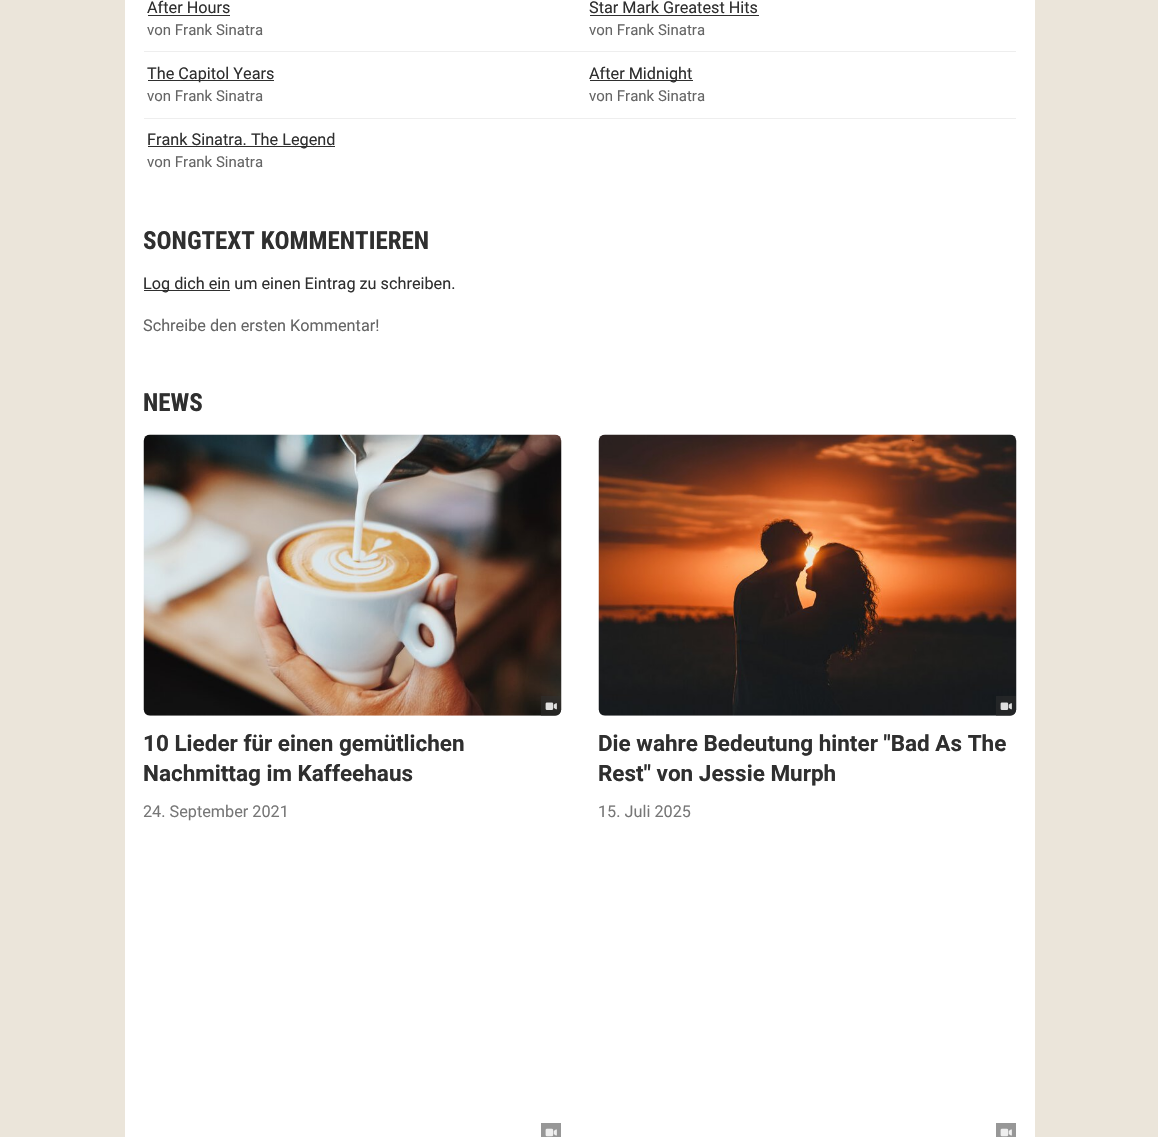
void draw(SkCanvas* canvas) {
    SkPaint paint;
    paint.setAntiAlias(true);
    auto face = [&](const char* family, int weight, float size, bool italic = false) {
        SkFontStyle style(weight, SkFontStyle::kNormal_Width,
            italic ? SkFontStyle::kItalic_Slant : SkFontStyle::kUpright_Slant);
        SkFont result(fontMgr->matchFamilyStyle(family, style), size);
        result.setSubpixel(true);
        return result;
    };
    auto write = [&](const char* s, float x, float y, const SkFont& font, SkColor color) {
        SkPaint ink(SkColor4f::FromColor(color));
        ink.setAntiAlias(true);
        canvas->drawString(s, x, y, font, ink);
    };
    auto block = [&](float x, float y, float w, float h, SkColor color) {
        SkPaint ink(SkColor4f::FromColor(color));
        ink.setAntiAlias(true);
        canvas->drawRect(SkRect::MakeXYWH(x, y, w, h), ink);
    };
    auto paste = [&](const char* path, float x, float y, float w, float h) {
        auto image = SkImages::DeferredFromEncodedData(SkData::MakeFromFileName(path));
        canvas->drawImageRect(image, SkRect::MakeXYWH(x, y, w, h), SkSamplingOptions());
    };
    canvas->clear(SkColorSetRGB(235, 229, 218));
    block(125, 0, 910, 1137, SK_ColorWHITE);
    block(144, 51, 872, 1, SkColorSetRGB(238, 238, 238));
    auto kFont1 = face("Roboto", 400, 16.25f);
    write("After Hours", 147, 13, kFont1, SkColorSetRGB(47, 47, 47));
    block(148, 15, 82, 1, SkColorSetRGB(47, 47, 47));
    auto kFont2 = face("Roboto", 400, 15);
    write("von Frank Sinatra", 147, 35, kFont2, SkColorSetRGB(101, 101, 101));
    write("Star Mark Greatest Hits", 589, 13, kFont1, SkColorSetRGB(47, 47, 47));
    block(590, 15, 169, 1, SkColorSetRGB(47, 47, 47));
    write("von Frank Sinatra", 589, 35, kFont2, SkColorSetRGB(101, 101, 101));
    block(144, 118, 872, 1, SkColorSetRGB(238, 238, 238));
    block(148, 80, 126, 1, SkColorSetRGB(47, 47, 47));
    write("The Capitol Years", 147, 79, kFont1, SkColorSetRGB(47, 47, 47));
    write("von Frank Sinatra", 147, 101, kFont2, SkColorSetRGB(101, 101, 101));
    block(590, 80, 103, 1, SkColorSetRGB(47, 47, 47));
    write("After Midnight", 589, 79, kFont1, SkColorSetRGB(47, 47, 47));
    write("von Frank Sinatra", 589, 101, kFont2, SkColorSetRGB(101, 101, 101));
    block(148, 146, 187, 1, SkColorSetRGB(47, 47, 47));
    write("Frank Sinatra. The Legend", 147, 145, kFont1, SkColorSetRGB(47, 47, 47));
    write("von Frank Sinatra", 147, 167, kFont2, SkColorSetRGB(101, 101, 101));
    auto kFont3 = face("Roboto Condensed", 700, 25);
    write("SONGTEXT KOMMENTIEREN", 143, 249, kFont3, SkColorSetRGB(47, 47, 47));
    block(144, 290, 86, 1, SkColorSetRGB(47, 47, 47));
    write("Log dich ein um einen Eintrag zu schreiben.", 143, 289, kFont1, SkColorSetRGB(47, 47, 47));
    write("Schreibe den ersten Kommentar!", 143, 331, kFont1, SkColorSetRGB(101, 101, 101));
    write("NEWS", 143, 411, kFont3, SkColorSetRGB(47, 47, 47));
    paste("pic1.png", 143, 434, 419, 282);
    paste("pic2.png", 541, 696, 20, 20);
    auto kFont4 = face("Roboto", 700, 22.5f);
    write("10 Lieder für einen gemütlichen", 143, 751, kFont4, SkColorSetRGB(47, 47, 47));
    write("Nachmittag im Kaffeehaus", 143, 781, kFont4, SkColorSetRGB(47, 47, 47));
    write("24. September 2021", 143, 817, kFont1, SkColorSetRGB(119, 119, 119));
    paste("pic3.png", 598, 434, 419, 282);
    paste("pic4.png", 996, 696, 20, 20);
    write("Die wahre Bedeutung hinter \"Bad As The", 598, 751, kFont4, SkColorSetRGB(47, 47, 47));
    write("Rest\" von Jessie Murph", 598, 781, kFont4, SkColorSetRGB(47, 47, 47));
    write("15. Juli 2025", 598, 817, kFont1, SkColorSetRGB(119, 119, 119));
    paste("pic5.png", 541, 1123, 20, 14);
    paste("pic5.png", 996, 1123, 20, 14);
}
